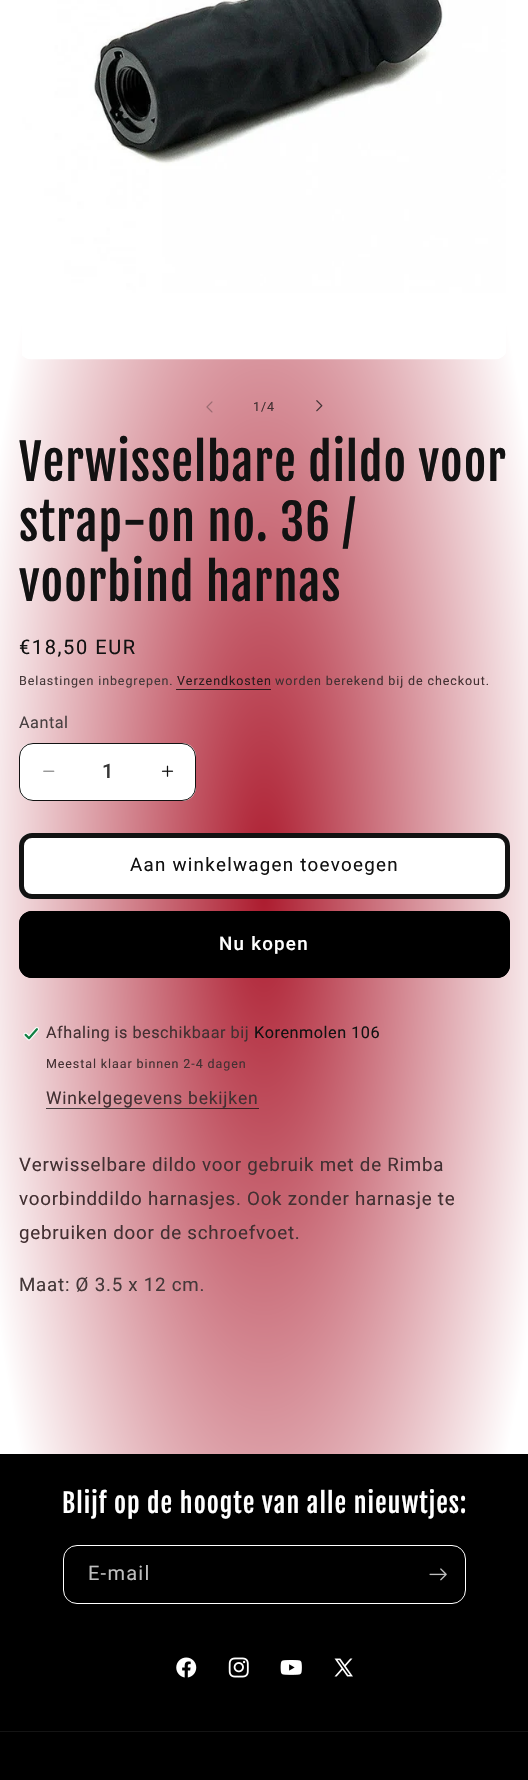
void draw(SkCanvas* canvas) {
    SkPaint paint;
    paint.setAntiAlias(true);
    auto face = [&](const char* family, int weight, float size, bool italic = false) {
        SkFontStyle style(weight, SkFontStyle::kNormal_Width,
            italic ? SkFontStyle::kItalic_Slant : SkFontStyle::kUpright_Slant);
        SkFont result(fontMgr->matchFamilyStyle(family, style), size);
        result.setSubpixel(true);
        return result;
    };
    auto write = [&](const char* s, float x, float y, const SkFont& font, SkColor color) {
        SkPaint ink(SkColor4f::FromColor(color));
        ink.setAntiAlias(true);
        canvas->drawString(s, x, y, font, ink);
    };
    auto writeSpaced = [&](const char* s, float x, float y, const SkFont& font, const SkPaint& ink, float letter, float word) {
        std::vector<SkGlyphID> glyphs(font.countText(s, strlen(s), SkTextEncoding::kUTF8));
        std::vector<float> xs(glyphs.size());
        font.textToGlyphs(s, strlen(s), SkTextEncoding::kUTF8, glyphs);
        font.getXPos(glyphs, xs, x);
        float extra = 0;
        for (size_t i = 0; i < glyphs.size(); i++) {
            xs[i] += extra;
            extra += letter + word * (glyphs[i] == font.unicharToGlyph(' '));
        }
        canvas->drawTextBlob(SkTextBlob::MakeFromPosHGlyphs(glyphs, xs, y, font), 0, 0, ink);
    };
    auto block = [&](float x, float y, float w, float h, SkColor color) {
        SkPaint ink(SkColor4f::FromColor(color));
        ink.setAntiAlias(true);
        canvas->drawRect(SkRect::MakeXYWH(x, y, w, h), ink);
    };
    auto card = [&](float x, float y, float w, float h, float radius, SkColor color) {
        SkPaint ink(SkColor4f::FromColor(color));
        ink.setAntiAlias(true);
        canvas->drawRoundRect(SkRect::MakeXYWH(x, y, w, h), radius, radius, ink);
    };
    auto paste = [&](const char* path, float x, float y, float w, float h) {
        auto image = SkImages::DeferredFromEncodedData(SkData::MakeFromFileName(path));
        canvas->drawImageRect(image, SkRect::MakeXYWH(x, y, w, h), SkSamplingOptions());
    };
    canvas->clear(SK_ColorWHITE);
    {
        const SkColor colors[] = {SkColorSetRGB(172, 27, 46), SK_ColorWHITE, SK_ColorWHITE};
        const float stops[] = {0, 0.79f, 0.97f};
        SkMatrix m = SkMatrix::Translate(264, 890).preScale(374, 1259);
        paint.setShader(SkGradientShader::MakeRadial({0, 0}, 1, colors, stops, 3, SkTileMode::kClamp, 0, &m));
        paint.setAlpha(255);
    }
    canvas->drawRect(SkRect::MakeXYWH(0, 0, 528, 1454), paint);
    {
        const SkColor colors[] = {SkColorSetRGB(57, 20, 25), SkColorSetRGB(77, 77, 77), SkColorSetRGB(77, 77, 77)};
        const float stops[] = {0, 0.79f, 0.97f};
        SkMatrix m = SkMatrix::Translate(264, 890).preScale(374, 1259);
        paint.setShader(SkGradientShader::MakeRadial({0, 0}, 1, colors, stops, 3, SkTileMode::kClamp, 0, &m));
        paint.setAlpha(255);
    }
    canvas->drawRect(SkRect::MakeXYWH(46, 1108, 213, 1), paint);
    {
        const SkColor colors[] = {SkColorSetRGB(41, 19, 22), SkColorSetRGB(54, 54, 54), SkColorSetRGB(54, 54, 54)};
        const float stops[] = {0, 0.79f, 0.97f};
        SkMatrix m = SkMatrix::Translate(264, 890).preScale(374, 1259);
        paint.setShader(SkGradientShader::MakeRadial({0, 0}, 1, colors, stops, 3, SkTileMode::kClamp, 0, &m));
        paint.setAlpha(255);
    }
    canvas->drawRect(SkRect::MakeXYWH(176, 689, 95, 1), paint);
    paste("pic1.png", 22, 0, 484, 360);
    paste("pic2.png", 206, 401, 7, 12);
    auto kFont1 = face("Roboto", 400, 12.5f);
    paint.setShader(nullptr);
    paint.setColor(SkColorSetRGB(67, 48, 50));
    writeSpaced("1/4", 253, 411, kFont1, paint, 0.9f, 0);
    paste("pic3.png", 316, 400, 7, 12);
    auto kFont2 = face("Fjalla One", 400, 48.75f);
    paint.setColor(SkColorSetRGB(18, 18, 18));
    writeSpaced("Verwisselbare dildo voor", 19, 481, kFont2, paint, 1, 0);
    writeSpaced("strap-on no. 36 /", 19, 541, kFont2, paint, 1, 0);
    writeSpaced("voorbind harnas", 19, 601, kFont2, paint, 1, 0);
    auto kFont3 = face("Roboto", 400, 20);
    writeSpaced("€18,50 EUR", 19, 654, kFont3, paint, 1.6f, 0);
    paint.setColor(SkColorSetRGB(69, 56, 57));
    writeSpaced("Belastingen inbegrepen.", 19, 685, kFont1, paint, 0.9f, 0);
    paint.setColor(SkColorSetRGB(44, 28, 30));
    writeSpaced("Verzendkosten", 177, 685, kFont1, paint, 0.9f, 0);
    paint.setColor(SkColorSetRGB(67, 48, 50));
    writeSpaced("worden berekend bij de checkout.", 275, 685, kFont1, paint, 0.9f, 0);
    auto kFont4 = face("Roboto", 400, 16.25f);
    paint.setColor(SkColorSetRGB(72, 64, 65));
    writeSpaced("Aantal", 19, 728, kFont4, paint, 0.5f, 0);
    card(19, 743, 177, 58, 14, SK_ColorWHITE);
    paste("pic4.png", 43, 770, 12, 2);
    paste("pic5.png", 161, 765, 13, 12);
    paint.setStyle(SkPaint::kStroke_Style);
    paint.setStrokeWidth(1);
    paint.setColor(SkColorSetRGB(18, 18, 18));
    canvas->drawRoundRect(SkRect::MakeXYWH(19.5f, 743.5f, 176, 57), 13.5f, 13.5f, paint);
    auto kFont5 = face("Roboto", 500, 20);
    write("1", 102, 778, kFont5, SkColorSetRGB(54, 54, 54));
    card(19, 833, 491, 66, 13, SK_ColorWHITE);
    paint.setStrokeWidth(5);
    paint.setColor(SK_ColorWHITE);
    canvas->drawRoundRect(SkRect::MakeXYWH(21.5f, 835.5f, 486, 61), 10.5f, 10.5f, paint);
    paint.setColor(SkColorSetRGB(18, 18, 18));
    canvas->drawRoundRect(SkRect::MakeXYWH(21.5f, 835.5f, 486, 61), 10.5f, 10.5f, paint);
    auto kFont6 = face("Roboto", 400, 18.75f);
    paint.setStyle(SkPaint::kFill_Style);
    writeSpaced("Aan winkelwagen toevoegen", 130, 871, kFont6, paint, 1.25f, 0);
    card(19, 911, 491, 67, 13, SK_ColorBLACK);
    paint.setStyle(SkPaint::kStroke_Style);
    paint.setColor(SK_ColorBLACK);
    canvas->drawRoundRect(SkRect::MakeXYWH(21.5f, 913.5f, 486, 62), 10.5f, 10.5f, paint);
    auto kFont7 = face("Roboto", 500, 18.75f);
    paint.setStyle(SkPaint::kFill_Style);
    paint.setColor(SK_ColorWHITE);
    writeSpaced("Nu kopen", 219, 950, kFont7, paint, 1.25f, 0);
    paste("pic6.png", 23, 1027, 16, 14);
    paint.setColor(SkColorSetRGB(67, 48, 50));
    writeSpaced("Afhaling is beschikbaar bij", 46, 1038, kFont4, paint, 0.5f, 0);
    paint.setColor(SkColorSetRGB(18, 18, 18));
    writeSpaced("Korenmolen 106", 254, 1038, kFont4, paint, 0.5f, 0);
    paint.setColor(SkColorSetRGB(67, 48, 50));
    writeSpaced("Meestal klaar binnen 2-4 dagen", 46, 1068, kFont1, paint, 0.9f, 0);
    auto kFont8 = face("Roboto", 400, 17.5f);
    writeSpaced("Winkelgegevens bekijken", 46, 1104, kFont8, paint, 0.75f, 0);
    writeSpaced("Verwisselbare dildo voor gebruik met de Rimba", 19, 1171, kFont6, paint, 0.75f, 0);
    writeSpaced("voorbinddildo harnasjes. Ook zonder harnasje te", 19, 1205, kFont6, paint, 0.75f, 0);
    writeSpaced("gebruiken door de schroefvoet.", 19, 1239, kFont6, paint, 0.75f, 0);
    paint.setColor(SkColorSetRGB(69, 56, 57));
    writeSpaced("Maat: Ø 3.5 x 12 cm.", 19, 1291, kFont6, paint, 0.75f, 0);
    block(0, 1454, 528, 326, SK_ColorBLACK);
    auto kFont9 = face("Fjalla One", 400, 26);
    paint.setColor(SK_ColorWHITE);
    writeSpaced("Blijf op de hoogte van alle nieuwtjes:", 62, 1513, kFont9, paint, 1, 0);
    paint.setStyle(SkPaint::kStroke_Style);
    paint.setStrokeWidth(1);
    canvas->drawRoundRect(SkRect::MakeXYWH(63.5f, 1545.5f, 402, 58), 13.5f, 13.5f, paint);
    paint.setStyle(SkPaint::kFill_Style);
    paint.setColor(SkColorSetRGB(191, 191, 191));
    writeSpaced("E‑mail", 88, 1580, kFont3, paint, 1.25f, 0);
    paste("pic7.png", 429, 1568, 18, 13);
    paste("pic8.png", 176, 1657, 21, 21);
    paste("pic9.png", 228, 1657, 21, 21);
    paste("pic10.png", 280, 1660, 22, 15);
    paste("pic11.png", 334, 1658, 19, 19);
    block(0, 1731, 528, 1, SkColorSetRGB(20, 20, 20));
}
